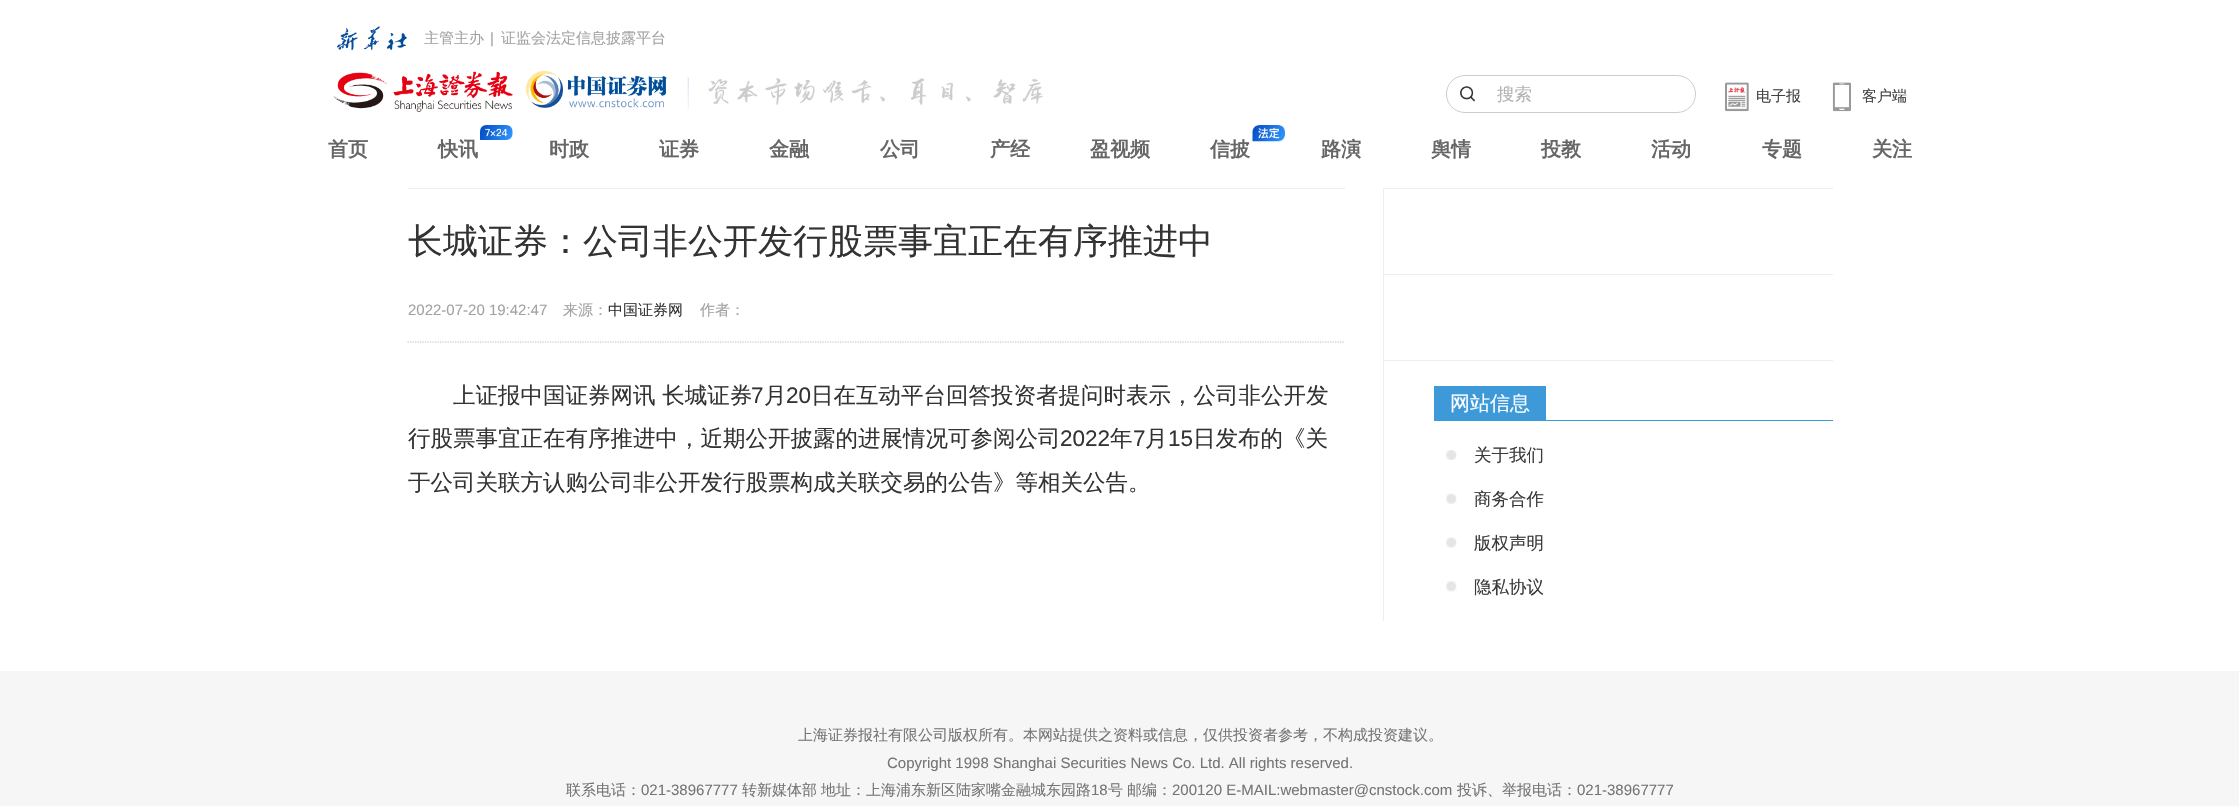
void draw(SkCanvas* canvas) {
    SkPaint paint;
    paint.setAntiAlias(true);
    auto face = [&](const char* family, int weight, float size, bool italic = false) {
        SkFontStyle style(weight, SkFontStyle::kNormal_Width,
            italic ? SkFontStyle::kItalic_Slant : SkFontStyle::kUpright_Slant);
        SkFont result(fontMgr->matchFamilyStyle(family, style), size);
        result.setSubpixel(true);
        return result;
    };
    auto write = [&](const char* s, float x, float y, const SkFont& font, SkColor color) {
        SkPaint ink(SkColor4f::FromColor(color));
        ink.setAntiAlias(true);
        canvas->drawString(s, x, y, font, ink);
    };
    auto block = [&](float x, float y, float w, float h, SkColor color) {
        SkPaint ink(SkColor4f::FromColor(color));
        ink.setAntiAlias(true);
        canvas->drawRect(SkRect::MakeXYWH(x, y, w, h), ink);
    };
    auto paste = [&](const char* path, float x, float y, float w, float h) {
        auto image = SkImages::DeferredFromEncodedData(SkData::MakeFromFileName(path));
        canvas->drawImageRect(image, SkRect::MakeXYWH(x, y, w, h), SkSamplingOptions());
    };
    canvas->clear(SK_ColorWHITE);
    paste("pic1.png", 337, 26, 70, 24);
    auto kFont1 = face("WenQuanYi Zen Hei", 500, 15);
    write("主管主办", 424, 43, kFont1, SkColorSetRGB(162, 162, 162));
    auto kFont2 = face("Liberation Sans", 400, 15);
    write("|", 490, 43, kFont2, SkColorSetRGB(162, 162, 162));
    write("证监会法定信息披露平台", 501, 43, kFont1, SkColorSetRGB(162, 162, 162));
    paste("pic2.png", 333, 71, 334, 41);
    paste("pic3.png", 687, 77, 356, 32);
    paste("pic4.png", 1460, 86, 15, 16);
    paint.setStyle(SkPaint::kStroke_Style);
    paint.setStrokeWidth(1);
    paint.setColor(SkColorSetRGB(204, 204, 204));
    canvas->drawRoundRect(SkRect::MakeXYWH(1446.5f, 75.5f, 249, 37), 18.5f, 18.5f, paint);
    auto kFont3 = face("WenQuanYi Zen Hei", 500, 17.5f);
    write("搜索", 1497, 100, kFont3, SkColorSetRGB(179, 179, 179));
    paste("pic5.png", 1725, 82, 24, 30);
    write("电子报", 1756, 101, kFont1, SkColorSetRGB(65, 65, 65));
    paste("pic6.png", 1832, 82, 19, 30);
    write("客户端", 1862, 101, kFont1, SkColorSetRGB(65, 65, 65));
    auto kFont4 = face("WenQuanYi Zen Hei", 700, 20);
    write("首页", 328, 156, kFont4, SkColorSetRGB(102, 102, 102));
    paste("pic7.png", 480, 125, 33, 15);
    write("快讯", 438, 156, kFont4, SkColorSetRGB(102, 102, 102));
    write("时政", 549, 156, kFont4, SkColorSetRGB(102, 102, 102));
    write("证券", 659, 156, kFont4, SkColorSetRGB(102, 102, 102));
    write("金融", 769, 156, kFont4, SkColorSetRGB(102, 102, 102));
    write("公司", 880, 156, kFont4, SkColorSetRGB(102, 102, 102));
    write("产经", 990, 156, kFont4, SkColorSetRGB(102, 102, 102));
    write("盈视频", 1090, 156, kFont4, SkColorSetRGB(102, 102, 102));
    paste("pic8.png", 1252, 125, 33, 17);
    write("信披", 1210, 156, kFont4, SkColorSetRGB(102, 102, 102));
    write("路演", 1321, 156, kFont4, SkColorSetRGB(102, 102, 102));
    write("舆情", 1431, 156, kFont4, SkColorSetRGB(102, 102, 102));
    write("投教", 1541, 156, kFont4, SkColorSetRGB(102, 102, 102));
    write("活动", 1651, 156, kFont4, SkColorSetRGB(102, 102, 102));
    write("专题", 1762, 156, kFont4, SkColorSetRGB(102, 102, 102));
    write("关注", 1872, 156, kFont4, SkColorSetRGB(102, 102, 102));
    block(408, 188, 937, 1, SkColorSetRGB(238, 238, 238));
    auto kFont5 = face("WenQuanYi Zen Hei", 500, 35);
    write("长城证券：公司非公开发行股票事宜正在有序推进中", 408, 253, kFont5, SkColorSetRGB(51, 51, 51));
    write("2022-07-20 19:42:47", 408, 315, kFont2, SkColorSetRGB(162, 162, 162));
    write("来源：", 563, 315, kFont1, SkColorSetRGB(162, 162, 162));
    write("中国证券网", 608, 315, kFont1, SkColorSetRGB(51, 51, 51));
    write("作者：", 700, 315, kFont1, SkColorSetRGB(162, 162, 162));
    paint.setStrokeWidth(1.2f);
    paint.setColor(SkColorSetRGB(190, 190, 190));
    paint.setPathEffect(SkDashPathEffect::Make({{1.25f, 1.25f}}, 0));
    canvas->drawPath(SkPathBuilder().moveTo(407.5f, 342).lineTo(1345, 342).detach(), paint);
    paint.setPathEffect(nullptr);
    auto kFont6 = face("WenQuanYi Zen Hei", 500, 22.5f);
    write("上证报中国证券网讯 长城证券", 453, 403, kFont6, SkColorSetRGB(51, 51, 51));
    auto kFont7 = face("Liberation Sans", 400, 22.5f);
    write("7", 751, 403, kFont7, SkColorSetRGB(51, 51, 51));
    write("月", 764, 403, kFont6, SkColorSetRGB(51, 51, 51));
    write("20", 786, 403, kFont7, SkColorSetRGB(51, 51, 51));
    write("日在互动平台回答投资者提问时表示，公司非公开发", 811, 403, kFont6, SkColorSetRGB(51, 51, 51));
    write("行股票事宜正在有序推进中，近期公开披露的进展情况可参阅公司", 408, 446, kFont6, SkColorSetRGB(51, 51, 51));
    write("2022", 1060, 446, kFont7, SkColorSetRGB(51, 51, 51));
    write("年", 1110, 446, kFont6, SkColorSetRGB(51, 51, 51));
    write("7", 1133, 446, kFont7, SkColorSetRGB(51, 51, 51));
    write("月", 1145, 446, kFont6, SkColorSetRGB(51, 51, 51));
    write("15", 1168, 446, kFont7, SkColorSetRGB(51, 51, 51));
    write("日发布的《关", 1193, 446, kFont6, SkColorSetRGB(51, 51, 51));
    write("于公司关联方认购公司非公开发行股票构成关联交易的公告》等相关公告。", 408, 490, kFont6, SkColorSetRGB(51, 51, 51));
    block(1383, 188, 1, 433, SkColorSetRGB(238, 238, 238));
    block(1384, 188, 449, 1, SkColorSetRGB(238, 238, 238));
    block(1384, 274, 449, 1, SkColorSetRGB(238, 238, 238));
    block(1384, 360, 449, 1, SkColorSetRGB(238, 238, 238));
    block(1546, 420, 287, 1, SkColorSetRGB(61, 153, 216));
    block(1434, 386, 112, 35, SkColorSetRGB(61, 153, 216));
    auto kFont8 = face("WenQuanYi Zen Hei", 500, 20);
    write("网站信息", 1450, 410, kFont8, SK_ColorWHITE);
    paste("pic9.png", 1446, 450, 11, 10);
    write("关于我们", 1474, 461, kFont3, SkColorSetRGB(58, 58, 58));
    paste("pic10.png", 1446, 493, 11, 11);
    write("商务合作", 1474, 505, kFont3, SkColorSetRGB(58, 58, 58));
    paste("pic11.png", 1446, 537, 11, 11);
    write("版权声明", 1474, 549, kFont3, SkColorSetRGB(58, 58, 58));
    paste("pic12.png", 1446, 581, 11, 11);
    write("隐私协议", 1474, 593, kFont3, SkColorSetRGB(58, 58, 58));
    block(0, 671, 2239, 135, SkColorSetRGB(246, 246, 246));
    write("上海证券报社有限公司版权所有。本网站提供之资料或信息，仅供投资者参考，不构成投资建议。", 798, 740, kFont1, SkColorSetRGB(117, 117, 117));
    write("Copyright 1998 Shanghai Securities News Co. Ltd. All rights reserved.", 887, 768, kFont2, SkColorSetRGB(117, 117, 117));
    write("联系电话：", 566, 795, kFont1, SkColorSetRGB(117, 117, 117));
    write("021-38967777", 641, 795, kFont2, SkColorSetRGB(117, 117, 117));
    write("转新媒体部", 742, 795, kFont1, SkColorSetRGB(117, 117, 117));
    write("地址：上海浦东新区陆家嘴金融城东园路", 821, 795, kFont1, SkColorSetRGB(117, 117, 117));
    write("18", 1091, 795, kFont2, SkColorSetRGB(117, 117, 117));
    write("号", 1108, 795, kFont1, SkColorSetRGB(117, 117, 117));
    write("邮编：", 1127, 795, kFont1, SkColorSetRGB(117, 117, 117));
    write("200120 E-MAIL:webmaster@cnstock.com", 1172, 795, kFont2, SkColorSetRGB(117, 117, 117));
    write("投诉、举报电话：", 1457, 795, kFont1, SkColorSetRGB(117, 117, 117));
    write("021-38967777", 1577, 795, kFont2, SkColorSetRGB(117, 117, 117));
}
